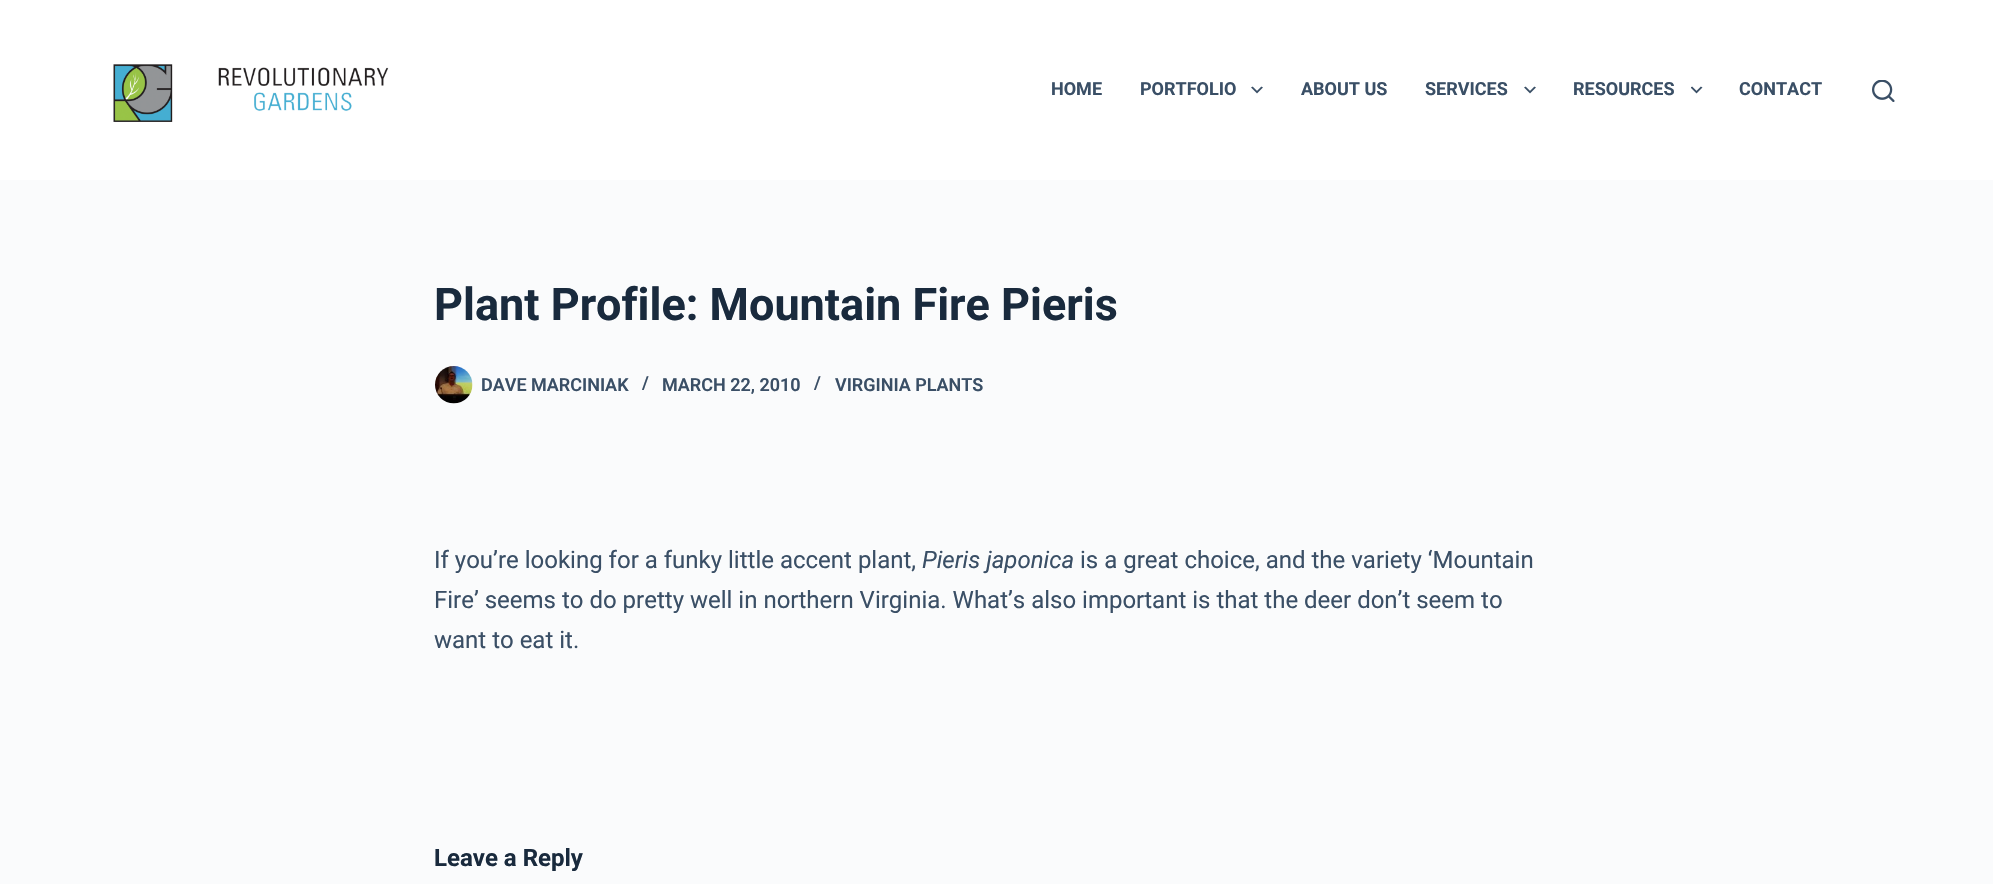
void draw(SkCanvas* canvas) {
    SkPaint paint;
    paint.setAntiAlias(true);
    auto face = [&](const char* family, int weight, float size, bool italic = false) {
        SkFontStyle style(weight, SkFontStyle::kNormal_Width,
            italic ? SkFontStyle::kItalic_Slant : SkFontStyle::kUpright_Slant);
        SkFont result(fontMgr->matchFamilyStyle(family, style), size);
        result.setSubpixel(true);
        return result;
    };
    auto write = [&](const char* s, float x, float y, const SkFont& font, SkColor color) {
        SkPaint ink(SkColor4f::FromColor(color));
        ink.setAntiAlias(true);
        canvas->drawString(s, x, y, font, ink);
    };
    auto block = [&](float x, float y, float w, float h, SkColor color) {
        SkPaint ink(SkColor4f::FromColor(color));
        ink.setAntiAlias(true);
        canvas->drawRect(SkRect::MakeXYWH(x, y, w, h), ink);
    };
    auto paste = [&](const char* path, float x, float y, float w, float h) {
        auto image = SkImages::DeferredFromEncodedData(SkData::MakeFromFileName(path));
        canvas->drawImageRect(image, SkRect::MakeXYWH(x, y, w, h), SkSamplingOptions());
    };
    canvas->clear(SkColorSetRGB(250, 251, 252));
    block(0, 0, 1993, 180, SK_ColorWHITE);
    paste("pic1.png", 113, 64, 276, 58);
    auto kFont1 = face("Roboto", 700, 18);
    write("HOME", 1051, 95, kFont1, SkColorSetRGB(58, 79, 102));
    write("PORTFOLIO", 1140, 95, kFont1, SkColorSetRGB(58, 79, 102));
    paste("pic2.png", 1251, 86, 12, 8);
    write("ABOUT US", 1301, 95, kFont1, SkColorSetRGB(58, 79, 102));
    write("SERVICES", 1425, 95, kFont1, SkColorSetRGB(58, 79, 102));
    paste("pic2.png", 1524, 86, 12, 8);
    write("RESOURCES", 1573, 95, kFont1, SkColorSetRGB(58, 79, 102));
    paste("pic3.png", 1691, 86, 12, 8);
    write("CONTACT", 1739, 95, kFont1, SkColorSetRGB(58, 79, 102));
    paste("pic4.png", 1872, 80, 23, 22);
    auto kFont2 = face("Roboto", 700, 45);
    write("Plant Profile: Mountain Fire Pieris", 434, 320, kFont2, SkColorSetRGB(25, 42, 61));
    paste("pic5.png", 435, 366, 38, 38);
    auto kFont3 = face("Roboto", 600, 18);
    write("DAVE MARCINIAK", 481, 391, kFont3, SkColorSetRGB(58, 79, 102));
    write("/", 642, 389, kFont3, SkColorSetRGB(58, 79, 102));
    write("MARCH 22, 2010", 662, 391, kFont3, SkColorSetRGB(58, 79, 102));
    write("/", 814, 389, kFont3, SkColorSetRGB(58, 79, 102));
    write("VIRGINIA PLANTS", 835, 391, kFont3, SkColorSetRGB(58, 79, 102));
    auto kFont4 = face("Roboto", 400, 24);
    write("If you’re looking for a funky little accent plant,", 434, 568, kFont4, SkColorSetRGB(58, 79, 102));
    auto kFont5 = face("Roboto", 400, 24, true);
    write("Pieris japonica", 922, 568, kFont5, SkColorSetRGB(58, 79, 102));
    write("is a great choice, and the variety ‘Mountain", 1080, 568, kFont4, SkColorSetRGB(58, 79, 102));
    write("Fire’ seems to do pretty well in northern Virginia. What’s also important is that the deer don’t seem to", 434, 608, kFont4, SkColorSetRGB(58, 79, 102));
    write("want to eat it.", 434, 648, kFont4, SkColorSetRGB(58, 79, 102));
    auto kFont6 = face("Roboto", 700, 24);
    write("Leave a Reply", 434, 866, kFont6, SkColorSetRGB(25, 42, 61));
}
